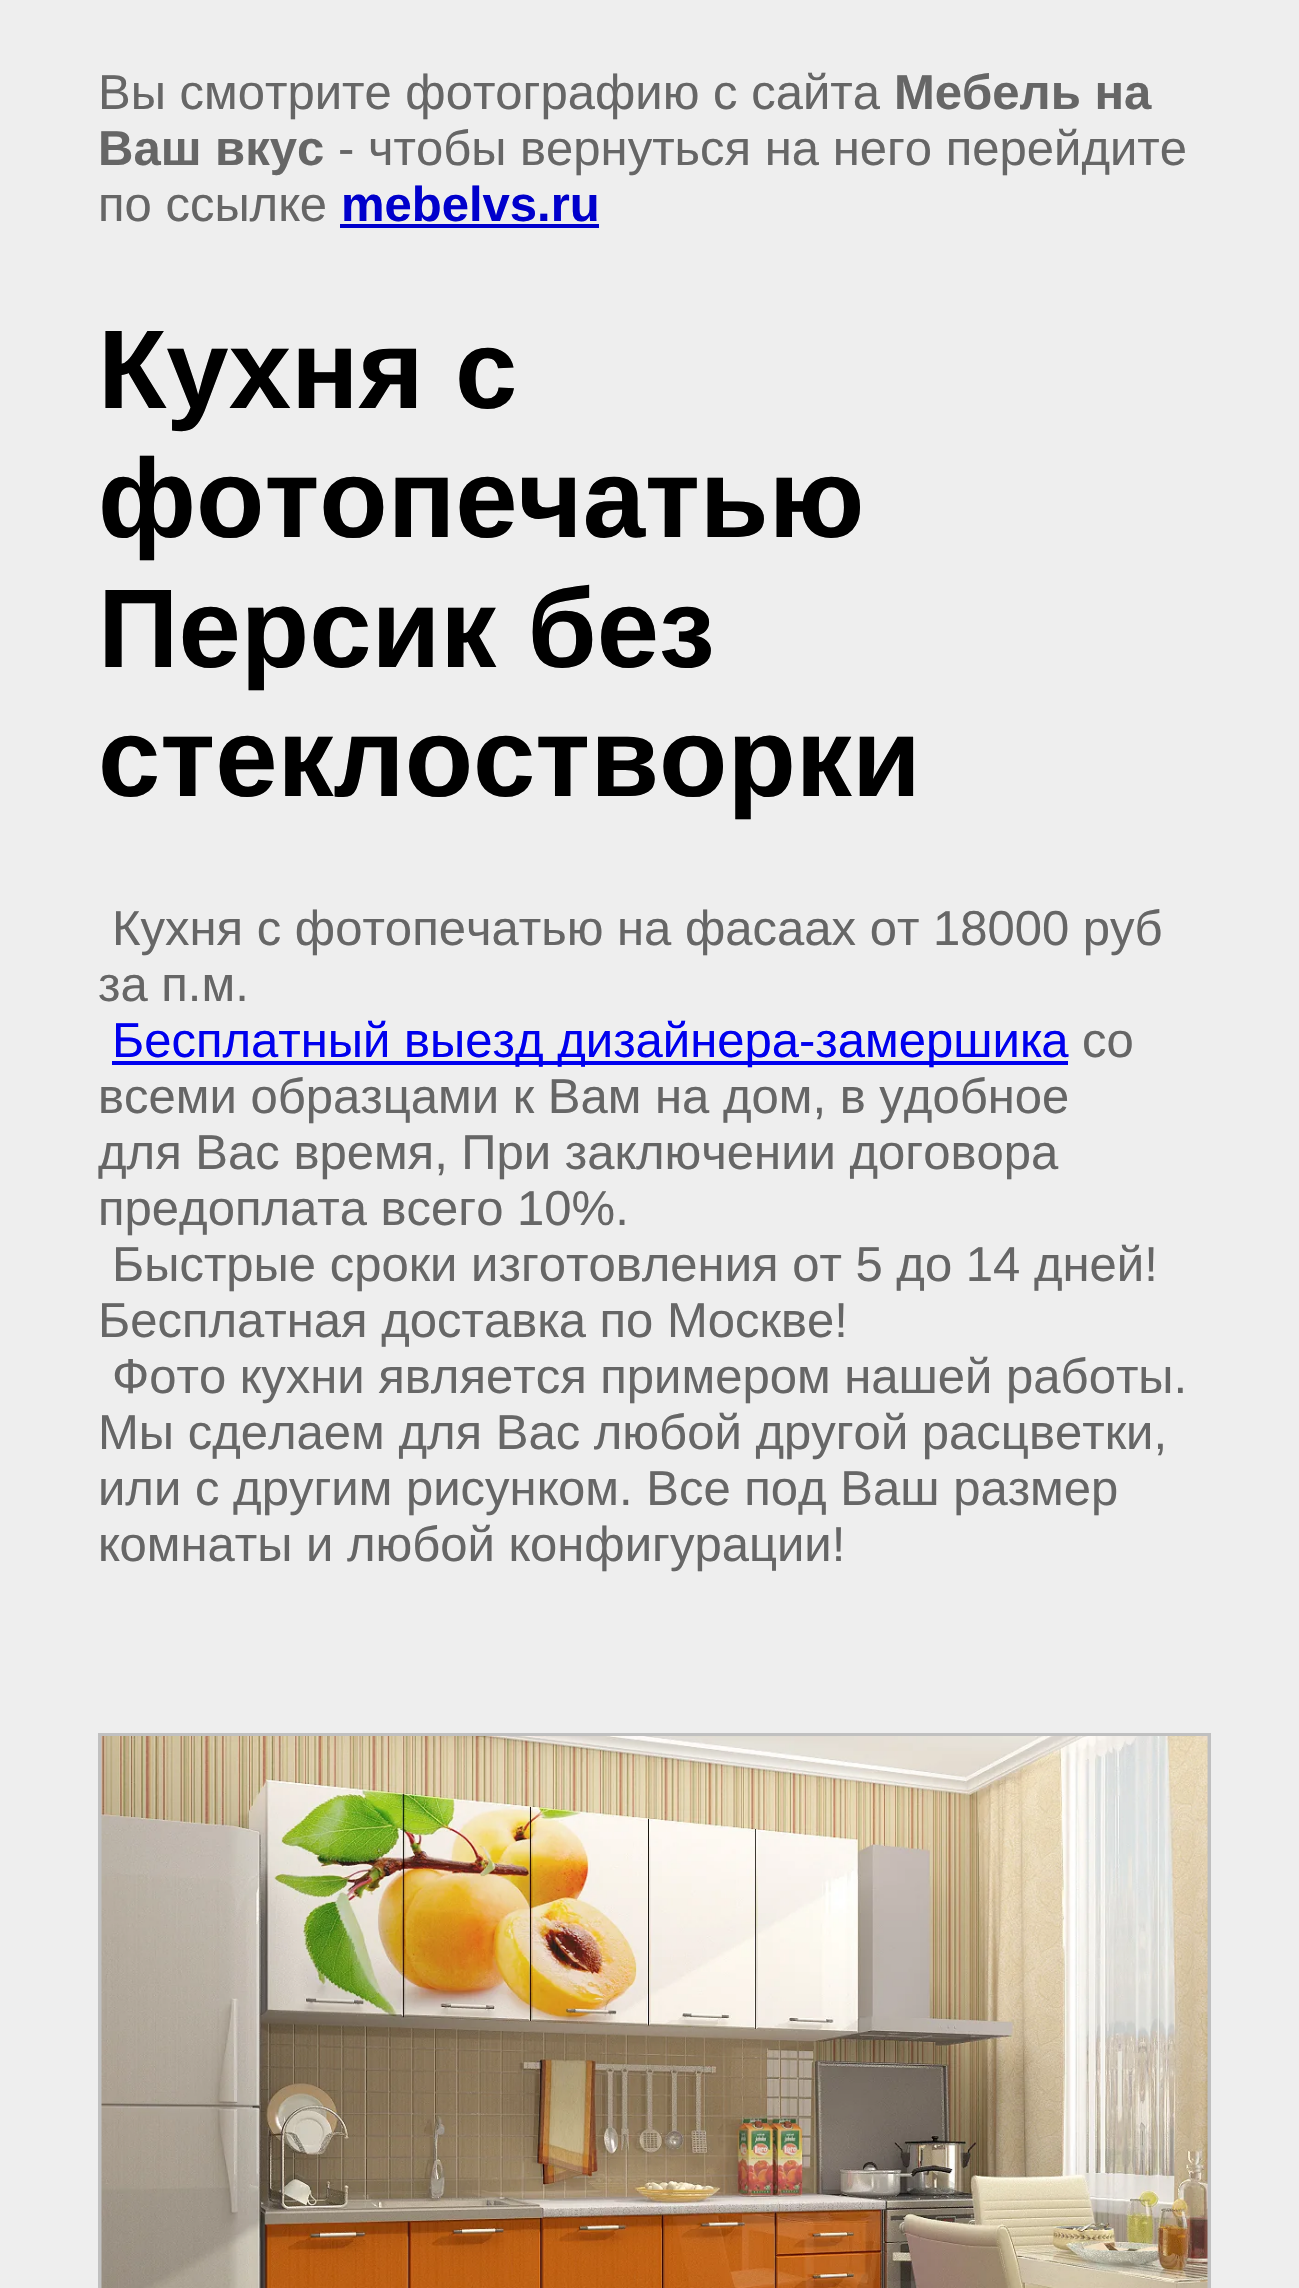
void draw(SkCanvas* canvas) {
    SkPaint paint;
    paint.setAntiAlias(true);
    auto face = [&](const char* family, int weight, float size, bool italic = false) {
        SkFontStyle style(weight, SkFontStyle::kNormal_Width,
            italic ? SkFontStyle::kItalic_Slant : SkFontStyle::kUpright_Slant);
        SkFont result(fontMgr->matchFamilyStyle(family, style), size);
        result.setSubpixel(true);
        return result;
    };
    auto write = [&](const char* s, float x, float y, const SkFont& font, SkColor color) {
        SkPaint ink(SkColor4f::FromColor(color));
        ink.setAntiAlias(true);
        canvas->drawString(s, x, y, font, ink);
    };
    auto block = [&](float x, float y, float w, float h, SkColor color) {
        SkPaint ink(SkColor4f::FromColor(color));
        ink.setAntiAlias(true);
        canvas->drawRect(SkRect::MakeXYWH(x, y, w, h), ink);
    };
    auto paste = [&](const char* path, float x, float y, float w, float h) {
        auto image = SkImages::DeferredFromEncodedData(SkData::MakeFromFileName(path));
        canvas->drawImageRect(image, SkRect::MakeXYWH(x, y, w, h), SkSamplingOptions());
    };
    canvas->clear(SkColorSetRGB(238, 238, 238));
    auto kFont1 = face("Liberation Sans", 400, 49);
    write("Вы смотрите фотографию с сайта", 98, 109, kFont1, SkColorSetRGB(102, 102, 102));
    auto kFont2 = face("Liberation Sans", 700, 49);
    write("Мебель на", 894, 109, kFont2, SkColorSetRGB(102, 102, 102));
    write("Ваш вкус", 98, 165, kFont2, SkColorSetRGB(102, 102, 102));
    write("- чтобы вернуться на него перейдите", 338, 165, kFont1, SkColorSetRGB(102, 102, 102));
    write("по ссылке", 98, 221, kFont1, SkColorSetRGB(102, 102, 102));
    write("mebelvs.ru", 341, 221, kFont2, SkColorSetRGB(0, 0, 204));
    block(340, 224, 259, 4, SkColorSetRGB(0, 0, 204));
    auto kFont3 = face("Liberation Sans", 700, 112);
    write("Кухня с", 98, 408, kFont3, SK_ColorBLACK);
    write("фотопечатью", 98, 537, kFont3, SK_ColorBLACK);
    write("Персик без", 98, 667, kFont3, SK_ColorBLACK);
    write("стеклостворки", 98, 796, kFont3, SK_ColorBLACK);
    write("Кухня с фотопечатью на фасаах от 18000 руб", 112, 945, kFont1, SkColorSetRGB(102, 102, 102));
    write("за п.м.", 98, 1001, kFont1, SkColorSetRGB(102, 102, 102));
    block(112, 1061, 956, 4, SkColorSetRGB(0, 0, 238));
    write("Бесплатный выезд дизайнера-замершика", 112, 1057, kFont1, SkColorSetRGB(0, 0, 238));
    write("со", 1082, 1057, kFont1, SkColorSetRGB(102, 102, 102));
    write("всеми образцами к Вам на дом, в удобное", 98, 1113, kFont1, SkColorSetRGB(102, 102, 102));
    write("для Вас время, При заключении договора", 98, 1169, kFont1, SkColorSetRGB(102, 102, 102));
    write("предоплата всего 10%.", 98, 1225, kFont1, SkColorSetRGB(102, 102, 102));
    write("Быстрые сроки изготовления от 5 до 14 дней!", 112, 1281, kFont1, SkColorSetRGB(102, 102, 102));
    write("Бесплатная доставка по Москве!", 98, 1337, kFont1, SkColorSetRGB(102, 102, 102));
    write("Фото кухни является примером нашей работы.", 112, 1393, kFont1, SkColorSetRGB(102, 102, 102));
    write("Мы сделаем для Вас любой другой расцветки,", 98, 1449, kFont1, SkColorSetRGB(102, 102, 102));
    write("или с другим рисунком. Все под Ваш размер", 98, 1505, kFont1, SkColorSetRGB(102, 102, 102));
    write("комнаты и любой конфигурации!", 98, 1561, kFont1, SkColorSetRGB(102, 102, 102));
    paint.setStyle(SkPaint::kStroke_Style);
    paint.setStrokeWidth(4);
    paint.setColor(SkColorSetRGB(192, 192, 192));
    canvas->drawRect(SkRect::MakeXYWH(100, 1735, 1109, 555), paint);
    paste("pic1.png", 101, 1736, 1107, 552);
}
